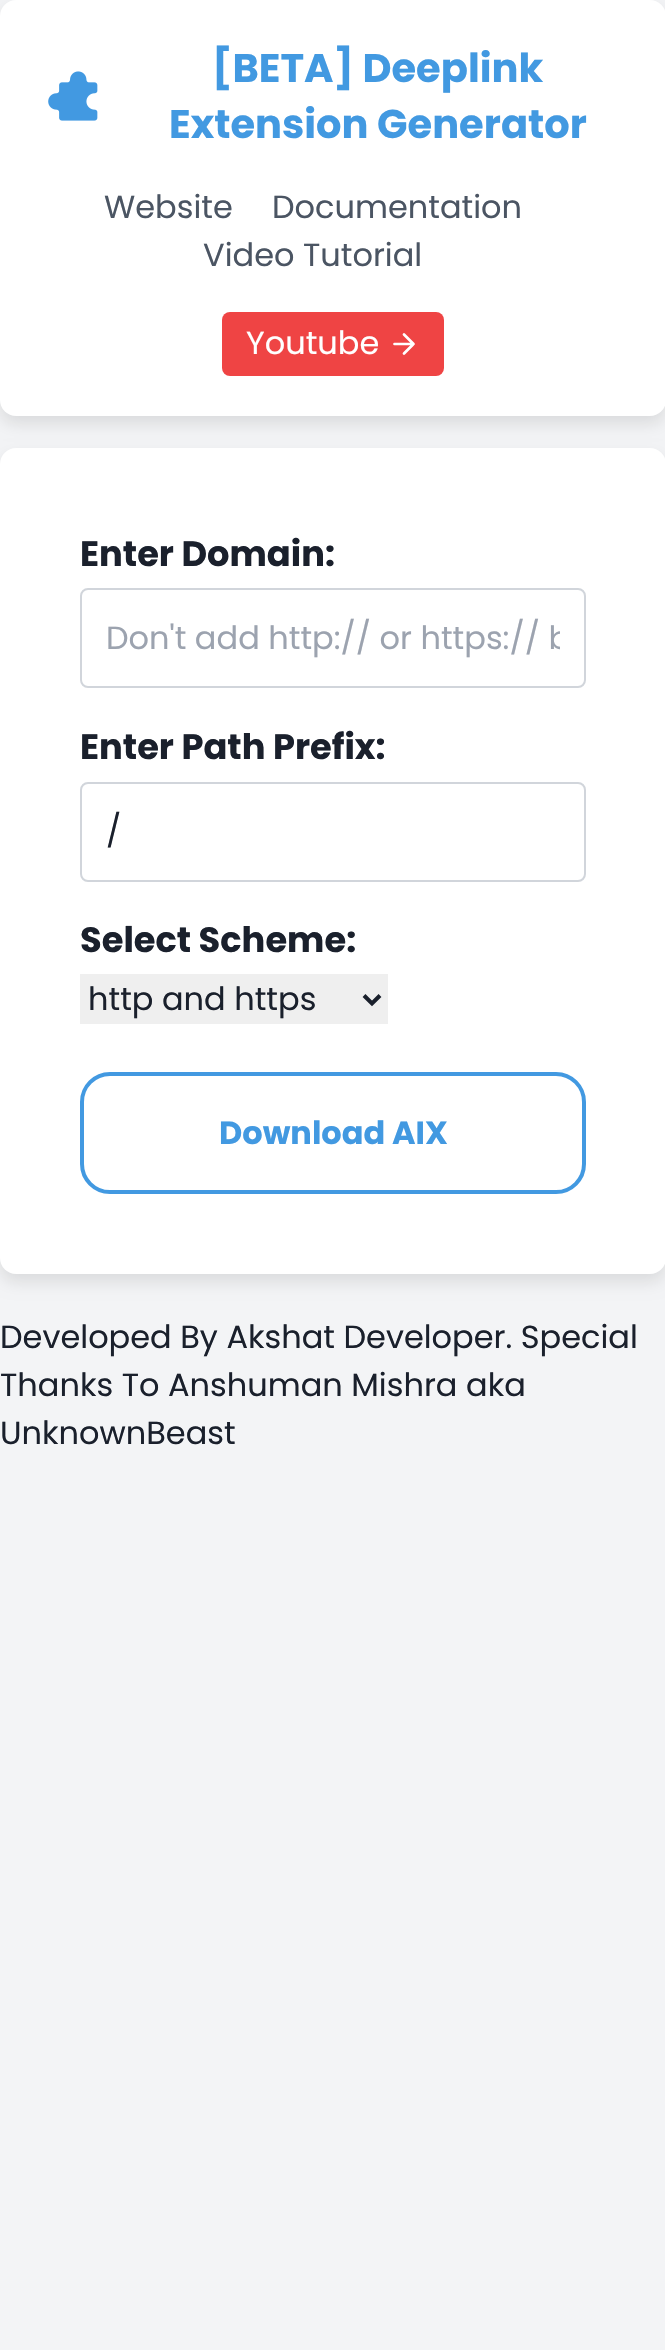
void draw(SkCanvas* canvas) {
    SkPaint paint;
    paint.setAntiAlias(true);
    auto face = [&](const char* family, int weight, float size, bool italic = false) {
        SkFontStyle style(weight, SkFontStyle::kNormal_Width,
            italic ? SkFontStyle::kItalic_Slant : SkFontStyle::kUpright_Slant);
        SkFont result(fontMgr->matchFamilyStyle(family, style), size);
        result.setSubpixel(true);
        return result;
    };
    auto write = [&](const char* s, float x, float y, const SkFont& font, SkColor color) {
        SkPaint ink(SkColor4f::FromColor(color));
        ink.setAntiAlias(true);
        canvas->drawString(s, x, y, font, ink);
    };
    auto block = [&](float x, float y, float w, float h, SkColor color) {
        SkPaint ink(SkColor4f::FromColor(color));
        ink.setAntiAlias(true);
        canvas->drawRect(SkRect::MakeXYWH(x, y, w, h), ink);
    };
    auto card = [&](float x, float y, float w, float h, float radius, SkColor color) {
        SkPaint ink(SkColor4f::FromColor(color));
        ink.setAntiAlias(true);
        canvas->drawRoundRect(SkRect::MakeXYWH(x, y, w, h), radius, radius, ink);
    };
    auto paste = [&](const char* path, float x, float y, float w, float h) {
        auto image = SkImages::DeferredFromEncodedData(SkData::MakeFromFileName(path));
        canvas->drawImageRect(image, SkRect::MakeXYWH(x, y, w, h), SkSamplingOptions());
    };
    canvas->clear(SkColorSetRGB(243, 244, 246));
    paint.setColor(SkColorSetARGB(26, 0, 0, 0));
    paint.setMaskFilter(SkMaskFilter::MakeBlur(kNormal_SkBlurStyle, 8));
    canvas->drawRoundRect(SkRect::MakeXYWH(0, 8, 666, 416), 16, 16, paint);
    paint.setMaskFilter(nullptr);
    card(0, 0, 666, 416, 16, SK_ColorWHITE);
    paste("pic1.png", 48, 71, 50, 50);
    auto kFont1 = face("Poppins", 700, 40);
    write("[BETA] Deeplink", 212, 82, kFont1, SkColorSetRGB(66, 153, 225));
    write("Extension Generator", 169, 138, kFont1, SkColorSetRGB(66, 153, 225));
    auto kFont2 = face("Poppins", 400, 32);
    write("Website", 104, 218, kFont2, SkColorSetRGB(75, 85, 99));
    write("Documentation", 272, 218, kFont2, SkColorSetRGB(75, 85, 99));
    write("Video Tutorial", 203, 266, kFont2, SkColorSetRGB(75, 85, 99));
    card(222, 312, 222, 64, 8, SkColorSetRGB(239, 68, 68));
    write("Youtube", 246, 354, kFont2, SK_ColorWHITE);
    paint.setStyle(SkPaint::kStroke_Style);
    paint.setStrokeWidth(2.7f);
    paint.setStrokeCap(SkPaint::kRound_Cap);
    paint.setStrokeJoin(SkPaint::kRound_Join);
    paint.setColor(SK_ColorWHITE);
    canvas->drawPath(SkPathBuilder().moveTo(394.5f, 344).lineTo(413.5f, 344).moveTo(404, 334.5f).lineTo(413.5f, 344).lineTo(404, 353.5f).detach(), paint);
    paint.setStyle(SkPaint::kFill_Style);
    paint.setColor(SkColorSetARGB(26, 0, 0, 0));
    paint.setMaskFilter(SkMaskFilter::MakeBlur(kNormal_SkBlurStyle, 8));
    canvas->drawRoundRect(SkRect::MakeXYWH(0, 456, 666, 826), 16, 16, paint);
    paint.setMaskFilter(nullptr);
    card(0, 448, 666, 826, 16, SK_ColorWHITE);
    auto kFont3 = face("Poppins", 700, 35.25f);
    write("Enter Domain:", 80, 566, kFont3, SkColorSetRGB(26, 32, 44));
    paint.setStyle(SkPaint::kStroke_Style);
    paint.setStrokeWidth(2);
    paint.setStrokeCap(SkPaint::kButt_Cap);
    paint.setStrokeJoin(SkPaint::kMiter_Join);
    paint.setColor(SkColorSetRGB(209, 213, 219));
    canvas->drawRoundRect(SkRect::MakeXYWH(81, 589, 504, 98), 7, 7, paint);
    canvas->save();
    canvas->clipRect(SkRect::MakeXYWH(106, 612, 454, 50));
    write("Don't add http:// or https:// b", 106, 649, kFont2, SkColorSetRGB(156, 163, 175));
    canvas->restore();
    write("Enter Path Prefix:", 80, 759, kFont3, SkColorSetRGB(26, 32, 44));
    canvas->drawRoundRect(SkRect::MakeXYWH(81, 783, 504, 98), 7, 7, paint);
    write("/", 106, 842, kFont2, SkColorSetRGB(26, 32, 44));
    write("Select Scheme:", 80, 952, kFont3, SkColorSetRGB(26, 32, 44));
    block(80, 974, 308, 50, SkColorSetRGB(239, 239, 239));
    paint.setStrokeWidth(4);
    paint.setColor(SkColorSetRGB(26, 32, 44));
    canvas->drawPath(SkPathBuilder().moveTo(364, 995.5f).lineTo(372, 1003.5f).lineTo(380, 995.5f).detach(), paint);
    write("http and https", 88, 1010, kFont2, SkColorSetRGB(26, 32, 44));
    paint.setColor(SkColorSetRGB(66, 153, 225));
    canvas->drawRoundRect(SkRect::MakeXYWH(82, 1074, 502, 118), 28, 28, paint);
    auto kFont4 = face("Poppins", 700, 32);
    write("Download AIX", 219, 1144, kFont4, SkColorSetRGB(66, 153, 225));
    write("Developed By Akshat Developer. Special", 0, 1348, kFont2, SkColorSetRGB(26, 32, 44));
    write("Thanks To Anshuman Mishra aka", 0, 1396, kFont2, SkColorSetRGB(26, 32, 44));
    write("UnknownBeast", 0, 1444, kFont2, SkColorSetRGB(26, 32, 44));
}
